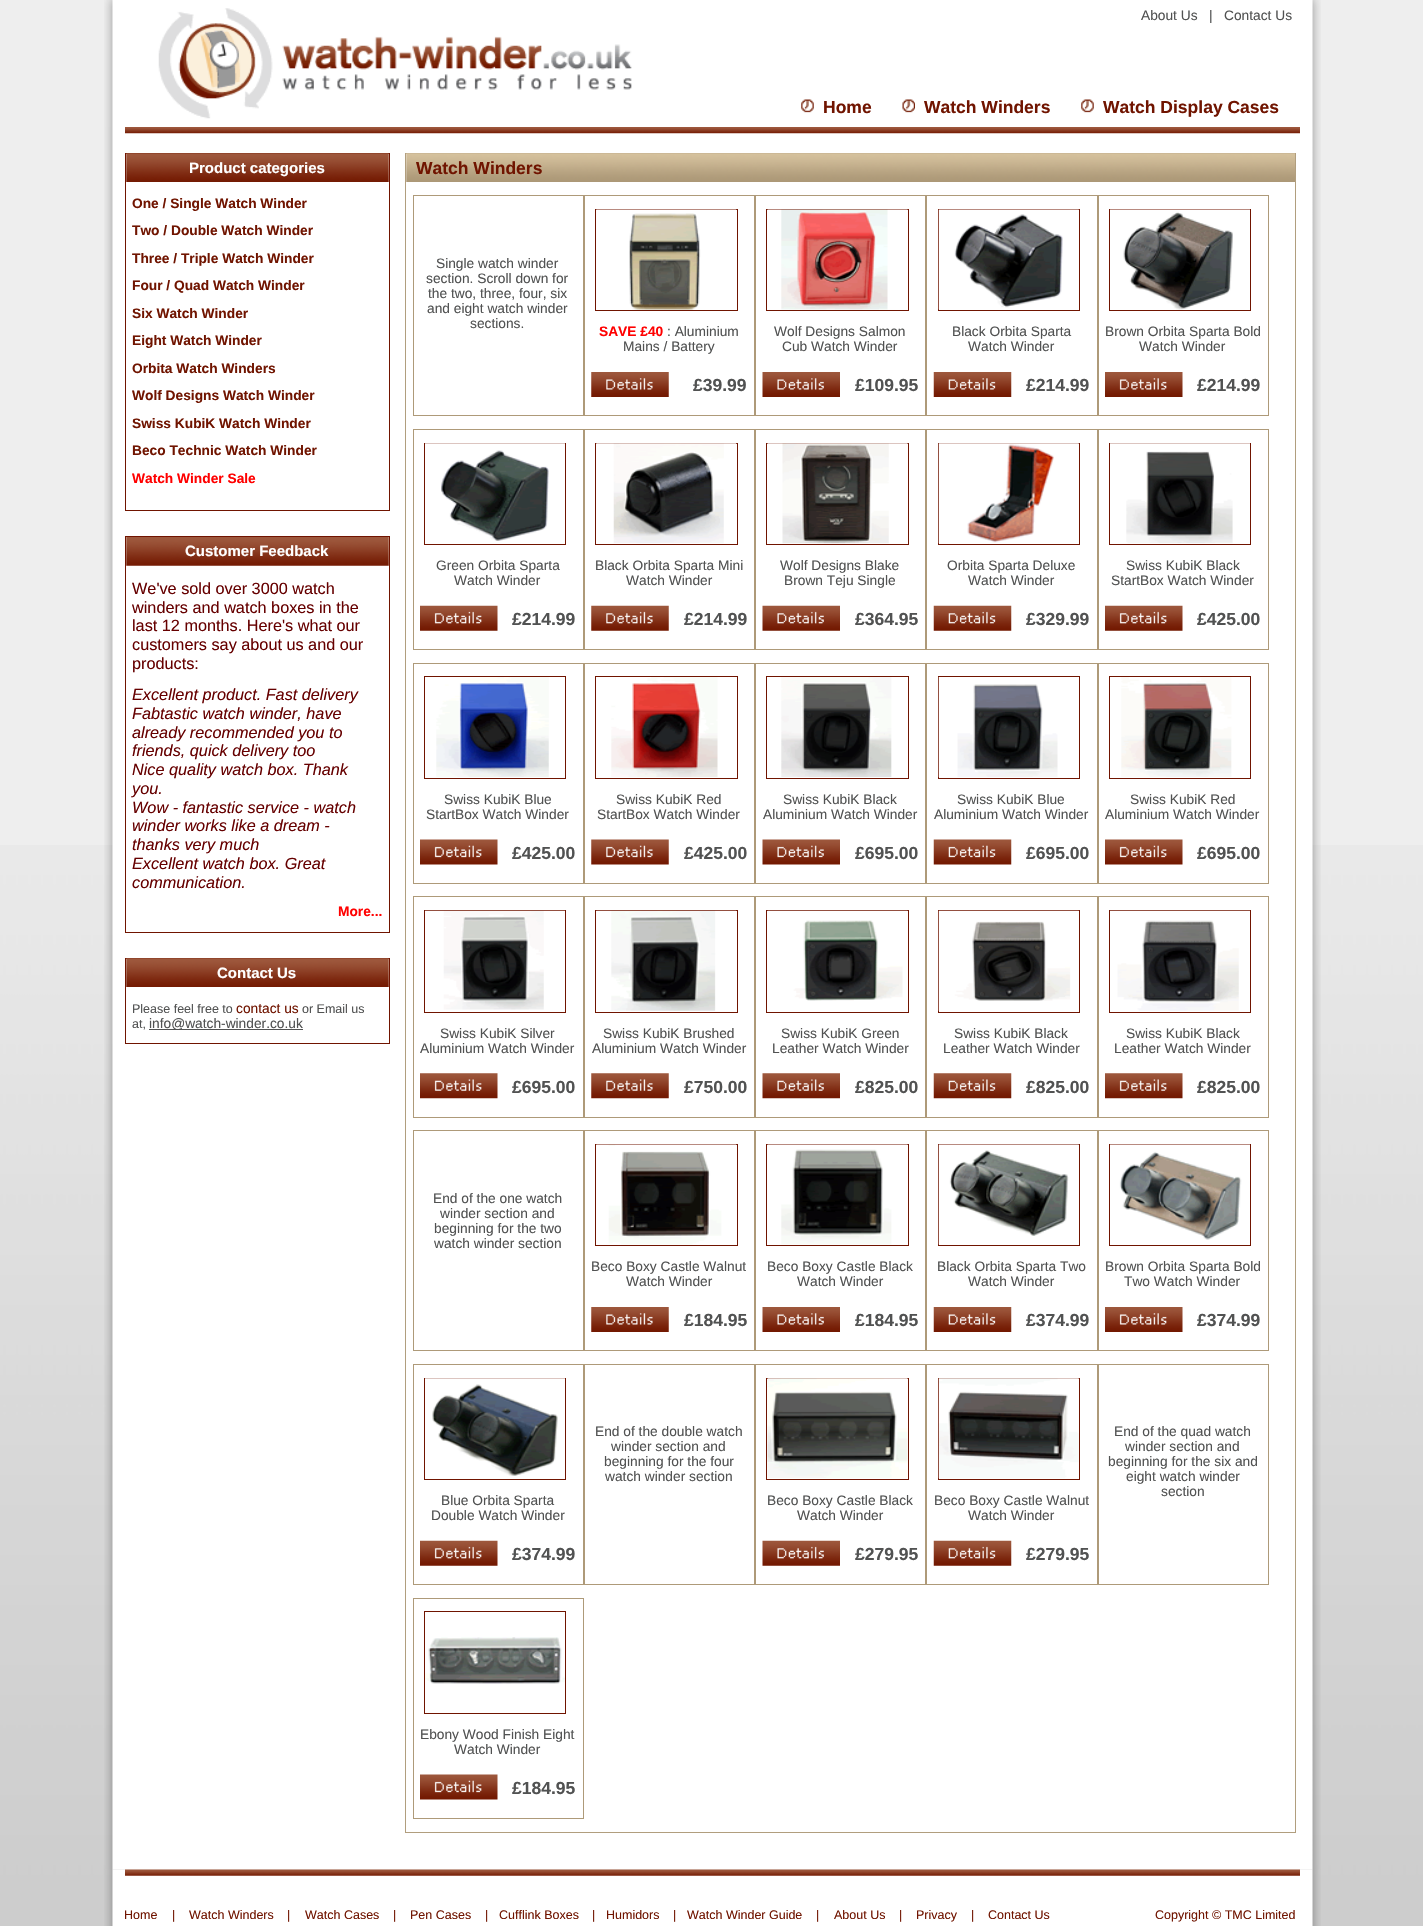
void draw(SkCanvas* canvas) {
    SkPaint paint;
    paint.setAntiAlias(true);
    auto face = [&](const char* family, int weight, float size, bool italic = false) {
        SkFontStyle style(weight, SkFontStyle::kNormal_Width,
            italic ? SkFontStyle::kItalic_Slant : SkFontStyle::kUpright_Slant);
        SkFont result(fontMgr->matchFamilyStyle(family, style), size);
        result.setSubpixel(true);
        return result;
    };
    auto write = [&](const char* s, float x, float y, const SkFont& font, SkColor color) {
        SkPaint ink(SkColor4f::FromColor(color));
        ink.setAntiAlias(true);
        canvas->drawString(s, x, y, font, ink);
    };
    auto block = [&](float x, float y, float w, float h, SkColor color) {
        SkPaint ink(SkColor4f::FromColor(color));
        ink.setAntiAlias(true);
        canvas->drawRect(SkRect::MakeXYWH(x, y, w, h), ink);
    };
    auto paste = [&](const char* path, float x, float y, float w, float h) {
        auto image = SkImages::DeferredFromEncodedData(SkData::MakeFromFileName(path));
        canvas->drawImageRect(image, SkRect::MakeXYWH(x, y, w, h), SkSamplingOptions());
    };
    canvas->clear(SkColorSetRGB(238, 238, 238));
    paste("pic1.png", 0, 845, 1423, 1081);
    paste("pic2.png", 104, 0, 1217, 127);
    paste("pic3.png", 158, 8, 474, 111);
    auto kFont1 = face("Liberation Sans", 400, 13.75f);
    write("About Us", 1141, 20, kFont1, SkColorSetRGB(81, 82, 82));
    write("|", 1209, 20, kFont1, SkColorSetRGB(81, 82, 82));
    write("Contact Us", 1224, 20, kFont1, SkColorSetRGB(81, 82, 82));
    paste("pic4.png", 801, 99, 13, 14);
    auto kFont2 = face("Liberation Sans", 700, 17.5f);
    write("Home", 823, 113, kFont2, SkColorSetRGB(112, 20, 0));
    paste("pic5.png", 902, 99, 13, 14);
    write("Watch Winders", 924, 113, kFont2, SkColorSetRGB(112, 20, 0));
    paste("pic4.png", 1081, 99, 13, 14);
    write("Watch Display Cases", 1103, 113, kFont2, SkColorSetRGB(112, 20, 0));
    paste("pic6.png", 104, 127, 1217, 1743);
    paste("pic7.png", 125, 127, 1175, 7);
    paint.setStyle(SkPaint::kStroke_Style);
    paint.setStrokeWidth(1);
    paint.setColor(SkColorSetRGB(112, 20, 0));
    canvas->drawRect(SkRect::MakeXYWH(125.5f, 153.5f, 264, 357), paint);
    paste("pic8.png", 126, 153, 263, 29);
    auto kFont3 = face("Liberation Sans", 700, 15);
    write("Product categories", 189, 173, kFont3, SK_ColorWHITE);
    auto kFont4 = face("Liberation Sans", 700, 13.75f);
    write("One / Single Watch Winder", 132, 208, kFont4, SkColorSetRGB(112, 20, 0));
    write("Two / Double Watch Winder", 132, 235, kFont4, SkColorSetRGB(112, 20, 0));
    write("Three / Triple Watch Winder", 132, 263, kFont4, SkColorSetRGB(112, 20, 0));
    write("Four / Quad Watch Winder", 132, 290, kFont4, SkColorSetRGB(112, 20, 0));
    write("Six Watch Winder", 132, 318, kFont4, SkColorSetRGB(112, 20, 0));
    write("Eight Watch Winder", 132, 345, kFont4, SkColorSetRGB(112, 20, 0));
    write("Orbita Watch Winders", 132, 373, kFont4, SkColorSetRGB(112, 20, 0));
    write("Wolf Designs Watch Winder", 132, 400, kFont4, SkColorSetRGB(112, 20, 0));
    write("Swiss KubiK Watch Winder", 132, 428, kFont4, SkColorSetRGB(112, 20, 0));
    write("Beco Technic Watch Winder", 132, 455, kFont4, SkColorSetRGB(112, 20, 0));
    write("Watch Winder Sale", 132, 483, kFont4, SkColorSetRGB(255, 0, 0));
    canvas->drawRect(SkRect::MakeXYWH(125.5f, 536.5f, 264, 396), paint);
    paste("pic9.png", 126, 537, 263, 29);
    write("Customer Feedback", 185, 556, kFont3, SK_ColorWHITE);
    auto kFont5 = face("Liberation Sans", 400, 16.25f);
    write("We've sold over 3000 watch", 132, 594, kFont5, SkColorSetRGB(102, 0, 0));
    write("winders and watch boxes in the", 132, 613, kFont5, SkColorSetRGB(102, 0, 0));
    write("last 12 months. Here's what our", 132, 631, kFont5, SkColorSetRGB(102, 0, 0));
    write("customers say about us and our", 132, 650, kFont5, SkColorSetRGB(102, 0, 0));
    write("products:", 132, 669, kFont5, SkColorSetRGB(102, 0, 0));
    auto kFont6 = face("Liberation Sans", 400, 16.25f, true);
    write("Excellent product. Fast delivery", 132, 700, kFont6, SkColorSetRGB(102, 0, 0));
    write("Fabtastic watch winder, have", 132, 719, kFont6, SkColorSetRGB(102, 0, 0));
    write("already recommended you to", 132, 738, kFont6, SkColorSetRGB(102, 0, 0));
    write("friends, quick delivery too", 132, 756, kFont6, SkColorSetRGB(102, 0, 0));
    write("Nice quality watch box. Thank", 132, 775, kFont6, SkColorSetRGB(102, 0, 0));
    write("you.", 132, 794, kFont6, SkColorSetRGB(102, 0, 0));
    write("Wow - fantastic service - watch", 132, 813, kFont6, SkColorSetRGB(102, 0, 0));
    write("winder works like a dream -", 132, 831, kFont6, SkColorSetRGB(102, 0, 0));
    write("thanks very much", 132, 850, kFont6, SkColorSetRGB(102, 0, 0));
    write("Excellent watch box. Great", 132, 869, kFont6, SkColorSetRGB(102, 0, 0));
    write("communication.", 132, 888, kFont6, SkColorSetRGB(102, 0, 0));
    write("More...", 338, 916, kFont4, SkColorSetRGB(255, 0, 0));
    canvas->drawRect(SkRect::MakeXYWH(125.5f, 958.5f, 264, 85), paint);
    paste("pic10.png", 126, 958, 263, 29);
    write("Contact Us", 217, 978, kFont3, SK_ColorWHITE);
    auto kFont7 = face("Liberation Sans", 400, 12.5f);
    write("Please feel free to", 132, 1013, kFont7, SkColorSetRGB(81, 82, 82));
    write("contact us", 236, 1013, kFont1, SkColorSetRGB(112, 20, 0));
    write("or Email us", 302, 1013, kFont7, SkColorSetRGB(81, 82, 82));
    write("at,", 132, 1028, kFont7, SkColorSetRGB(81, 82, 82));
    block(149, 1029, 154, 1, SkColorSetRGB(81, 82, 82));
    write("info@watch-winder.co.uk", 149, 1028, kFont1, SkColorSetRGB(81, 82, 82));
    paint.setColor(SkColorSetRGB(177, 158, 126));
    canvas->drawRect(SkRect::MakeXYWH(405.5f, 153.5f, 890, 1679), paint);
    paste("pic11.png", 406, 153, 889, 29);
    write("Watch Winders", 416, 174, kFont2, SkColorSetRGB(112, 20, 0));
    paint.setColor(SkColorSetRGB(174, 154, 121));
    canvas->drawRect(SkRect::MakeXYWH(413.5f, 195.5f, 170, 220), paint);
    write("Single watch winder", 436, 268, kFont1, SkColorSetRGB(81, 82, 82));
    write("section. Scroll down for", 426, 283, kFont1, SkColorSetRGB(81, 82, 82));
    write("the two, three, four, six", 428, 298, kFont1, SkColorSetRGB(81, 82, 82));
    write("and eight watch winder", 427, 313, kFont1, SkColorSetRGB(81, 82, 82));
    write("sections.", 470, 328, kFont1, SkColorSetRGB(81, 82, 82));
    canvas->drawRect(SkRect::MakeXYWH(584.5f, 195.5f, 170, 220), paint);
    paint.setColor(SkColorSetRGB(112, 20, 0));
    canvas->drawRect(SkRect::MakeXYWH(595.5f, 209.5f, 142, 101), paint);
    paste("pic12.png", 596, 209, 141, 101);
    write("SAVE £40", 599, 336, kFont4, SkColorSetRGB(255, 0, 0));
    write(": Aluminium", 667, 336, kFont1, SkColorSetRGB(81, 82, 82));
    write("Mains / Battery", 623, 351, kFont1, SkColorSetRGB(81, 82, 82));
    paste("pic13.png", 591, 372, 78, 25);
    write("£39.99", 693, 391, kFont2, SkColorSetRGB(81, 82, 82));
    paint.setColor(SkColorSetRGB(174, 154, 121));
    canvas->drawRect(SkRect::MakeXYWH(755.5f, 195.5f, 170, 220), paint);
    paint.setColor(SkColorSetRGB(112, 20, 0));
    canvas->drawRect(SkRect::MakeXYWH(766.5f, 209.5f, 142, 101), paint);
    paste("pic14.png", 767, 209, 141, 101);
    write("Wolf Designs Salmon", 774, 336, kFont1, SkColorSetRGB(81, 82, 82));
    write("Cub Watch Winder", 782, 351, kFont1, SkColorSetRGB(81, 82, 82));
    paste("pic15.png", 762, 372, 78, 25);
    write("£109.95", 855, 391, kFont2, SkColorSetRGB(81, 82, 82));
    paint.setColor(SkColorSetRGB(174, 154, 121));
    canvas->drawRect(SkRect::MakeXYWH(926.5f, 195.5f, 171, 220), paint);
    paint.setColor(SkColorSetRGB(112, 20, 0));
    canvas->drawRect(SkRect::MakeXYWH(938.5f, 209.5f, 141, 101), paint);
    paste("pic16.png", 938, 209, 141, 101);
    write("Black Orbita Sparta", 952, 336, kFont1, SkColorSetRGB(81, 82, 82));
    write("Watch Winder", 968, 351, kFont1, SkColorSetRGB(81, 82, 82));
    paste("pic17.png", 933, 372, 79, 25);
    write("£214.99", 1026, 391, kFont2, SkColorSetRGB(81, 82, 82));
    paint.setColor(SkColorSetRGB(174, 154, 121));
    canvas->drawRect(SkRect::MakeXYWH(1098.5f, 195.5f, 170, 220), paint);
    paint.setColor(SkColorSetRGB(112, 20, 0));
    canvas->drawRect(SkRect::MakeXYWH(1109.5f, 209.5f, 141, 101), paint);
    paste("pic18.png", 1110, 209, 140, 101);
    write("Brown Orbita Sparta Bold", 1105, 336, kFont1, SkColorSetRGB(81, 82, 82));
    write("Watch Winder", 1139, 351, kFont1, SkColorSetRGB(81, 82, 82));
    paste("pic19.png", 1105, 372, 78, 25);
    write("£214.99", 1197, 391, kFont2, SkColorSetRGB(81, 82, 82));
    paint.setColor(SkColorSetRGB(174, 154, 121));
    canvas->drawRect(SkRect::MakeXYWH(413.5f, 429.5f, 170, 220), paint);
    paint.setColor(SkColorSetRGB(112, 20, 0));
    canvas->drawRect(SkRect::MakeXYWH(424.5f, 443.5f, 141, 101), paint);
    paste("pic20.png", 425, 443, 140, 98);
    write("Green Orbita Sparta", 436, 570, kFont1, SkColorSetRGB(81, 82, 82));
    write("Watch Winder", 454, 585, kFont1, SkColorSetRGB(81, 82, 82));
    paste("pic21.png", 420, 605, 78, 26);
    write("£214.99", 512, 625, kFont2, SkColorSetRGB(81, 82, 82));
    paint.setColor(SkColorSetRGB(174, 154, 121));
    canvas->drawRect(SkRect::MakeXYWH(584.5f, 429.5f, 170, 220), paint);
    paint.setColor(SkColorSetRGB(112, 20, 0));
    canvas->drawRect(SkRect::MakeXYWH(595.5f, 443.5f, 142, 101), paint);
    paste("pic22.png", 596, 443, 141, 101);
    write("Black Orbita Sparta Mini", 595, 570, kFont1, SkColorSetRGB(81, 82, 82));
    write("Watch Winder", 626, 585, kFont1, SkColorSetRGB(81, 82, 82));
    paste("pic23.png", 591, 605, 78, 26);
    write("£214.99", 684, 625, kFont2, SkColorSetRGB(81, 82, 82));
    paint.setColor(SkColorSetRGB(174, 154, 121));
    canvas->drawRect(SkRect::MakeXYWH(755.5f, 429.5f, 170, 220), paint);
    paint.setColor(SkColorSetRGB(112, 20, 0));
    canvas->drawRect(SkRect::MakeXYWH(766.5f, 443.5f, 142, 101), paint);
    paste("pic24.png", 767, 443, 141, 101);
    write("Wolf Designs Blake", 780, 570, kFont1, SkColorSetRGB(81, 82, 82));
    write("Brown Teju Single", 784, 585, kFont1, SkColorSetRGB(81, 82, 82));
    paste("pic25.png", 762, 605, 78, 26);
    write("£364.95", 855, 625, kFont2, SkColorSetRGB(81, 82, 82));
    paint.setColor(SkColorSetRGB(174, 154, 121));
    canvas->drawRect(SkRect::MakeXYWH(926.5f, 429.5f, 171, 220), paint);
    paint.setColor(SkColorSetRGB(112, 20, 0));
    canvas->drawRect(SkRect::MakeXYWH(938.5f, 443.5f, 141, 101), paint);
    paste("pic26.png", 938, 443, 141, 101);
    write("Orbita Sparta Deluxe", 947, 570, kFont1, SkColorSetRGB(81, 82, 82));
    write("Watch Winder", 968, 585, kFont1, SkColorSetRGB(81, 82, 82));
    paste("pic27.png", 933, 605, 79, 26);
    write("£329.99", 1026, 625, kFont2, SkColorSetRGB(81, 82, 82));
    paint.setColor(SkColorSetRGB(174, 154, 121));
    canvas->drawRect(SkRect::MakeXYWH(1098.5f, 429.5f, 170, 220), paint);
    paint.setColor(SkColorSetRGB(112, 20, 0));
    canvas->drawRect(SkRect::MakeXYWH(1109.5f, 443.5f, 141, 101), paint);
    paste("pic28.png", 1110, 443, 140, 101);
    write("Swiss KubiK Black", 1126, 570, kFont1, SkColorSetRGB(81, 82, 82));
    write("StartBox Watch Winder", 1111, 585, kFont1, SkColorSetRGB(81, 82, 82));
    paste("pic21.png", 1105, 605, 78, 26);
    write("£425.00", 1197, 625, kFont2, SkColorSetRGB(81, 82, 82));
    paint.setColor(SkColorSetRGB(174, 154, 121));
    canvas->drawRect(SkRect::MakeXYWH(413.5f, 663.5f, 170, 220), paint);
    paint.setColor(SkColorSetRGB(112, 20, 0));
    canvas->drawRect(SkRect::MakeXYWH(424.5f, 676.5f, 141, 102), paint);
    paste("pic29.png", 436, 677, 113, 100);
    write("Swiss KubiK Blue", 444, 804, kFont1, SkColorSetRGB(81, 82, 82));
    write("StartBox Watch Winder", 426, 819, kFont1, SkColorSetRGB(81, 82, 82));
    paste("pic30.png", 420, 839, 78, 26);
    write("£425.00", 512, 859, kFont2, SkColorSetRGB(81, 82, 82));
    paint.setColor(SkColorSetRGB(174, 154, 121));
    canvas->drawRect(SkRect::MakeXYWH(584.5f, 663.5f, 170, 220), paint);
    paint.setColor(SkColorSetRGB(112, 20, 0));
    canvas->drawRect(SkRect::MakeXYWH(595.5f, 676.5f, 142, 102), paint);
    paste("pic31.png", 611, 677, 107, 100);
    write("Swiss KubiK Red", 616, 804, kFont1, SkColorSetRGB(81, 82, 82));
    write("StartBox Watch Winder", 597, 819, kFont1, SkColorSetRGB(81, 82, 82));
    paste("pic32.png", 591, 839, 78, 26);
    write("£425.00", 684, 859, kFont2, SkColorSetRGB(81, 82, 82));
    paint.setColor(SkColorSetRGB(174, 154, 121));
    canvas->drawRect(SkRect::MakeXYWH(755.5f, 663.5f, 170, 220), paint);
    paint.setColor(SkColorSetRGB(112, 20, 0));
    canvas->drawRect(SkRect::MakeXYWH(766.5f, 676.5f, 142, 102), paint);
    paste("pic33.png", 781, 677, 111, 100);
    write("Swiss KubiK Black", 783, 804, kFont1, SkColorSetRGB(81, 82, 82));
    write("Aluminium Watch Winder", 763, 819, kFont1, SkColorSetRGB(81, 82, 82));
    paste("pic34.png", 762, 839, 78, 26);
    write("£695.00", 855, 859, kFont2, SkColorSetRGB(81, 82, 82));
    paint.setColor(SkColorSetRGB(174, 154, 121));
    canvas->drawRect(SkRect::MakeXYWH(926.5f, 663.5f, 171, 220), paint);
    paint.setColor(SkColorSetRGB(112, 20, 0));
    canvas->drawRect(SkRect::MakeXYWH(938.5f, 676.5f, 141, 102), paint);
    paste("pic35.png", 938, 677, 120, 100);
    write("Swiss KubiK Blue", 957, 804, kFont1, SkColorSetRGB(81, 82, 82));
    write("Aluminium Watch Winder", 934, 819, kFont1, SkColorSetRGB(81, 82, 82));
    paste("pic36.png", 933, 839, 79, 26);
    write("£695.00", 1026, 859, kFont2, SkColorSetRGB(81, 82, 82));
    paint.setColor(SkColorSetRGB(174, 154, 121));
    canvas->drawRect(SkRect::MakeXYWH(1098.5f, 663.5f, 170, 220), paint);
    paint.setColor(SkColorSetRGB(112, 20, 0));
    canvas->drawRect(SkRect::MakeXYWH(1109.5f, 676.5f, 141, 102), paint);
    paste("pic37.png", 1121, 677, 111, 100);
    write("Swiss KubiK Red", 1130, 804, kFont1, SkColorSetRGB(81, 82, 82));
    write("Aluminium Watch Winder", 1105, 819, kFont1, SkColorSetRGB(81, 82, 82));
    paste("pic30.png", 1105, 839, 78, 26);
    write("£695.00", 1197, 859, kFont2, SkColorSetRGB(81, 82, 82));
    paint.setColor(SkColorSetRGB(174, 154, 121));
    canvas->drawRect(SkRect::MakeXYWH(413.5f, 896.5f, 170, 221), paint);
    paint.setColor(SkColorSetRGB(112, 20, 0));
    canvas->drawRect(SkRect::MakeXYWH(424.5f, 910.5f, 141, 102), paint);
    paste("pic38.png", 425, 910, 140, 100);
    write("Swiss KubiK Silver", 440, 1038, kFont1, SkColorSetRGB(81, 82, 82));
    write("Aluminium Watch Winder", 420, 1053, kFont1, SkColorSetRGB(81, 82, 82));
    paste("pic39.png", 420, 1073, 78, 26);
    write("£695.00", 512, 1093, kFont2, SkColorSetRGB(81, 82, 82));
    paint.setColor(SkColorSetRGB(174, 154, 121));
    canvas->drawRect(SkRect::MakeXYWH(584.5f, 896.5f, 170, 221), paint);
    paint.setColor(SkColorSetRGB(112, 20, 0));
    canvas->drawRect(SkRect::MakeXYWH(595.5f, 910.5f, 142, 102), paint);
    paste("pic40.png", 596, 910, 141, 101);
    write("Swiss KubiK Brushed", 603, 1038, kFont1, SkColorSetRGB(81, 82, 82));
    write("Aluminium Watch Winder", 592, 1053, kFont1, SkColorSetRGB(81, 82, 82));
    paste("pic41.png", 591, 1073, 78, 26);
    write("£750.00", 684, 1093, kFont2, SkColorSetRGB(81, 82, 82));
    paint.setColor(SkColorSetRGB(174, 154, 121));
    canvas->drawRect(SkRect::MakeXYWH(755.5f, 896.5f, 170, 221), paint);
    paint.setColor(SkColorSetRGB(112, 20, 0));
    canvas->drawRect(SkRect::MakeXYWH(766.5f, 910.5f, 142, 102), paint);
    paste("pic42.png", 767, 910, 141, 91);
    write("Swiss KubiK Green", 781, 1038, kFont1, SkColorSetRGB(81, 82, 82));
    write("Leather Watch Winder", 772, 1053, kFont1, SkColorSetRGB(81, 82, 82));
    paste("pic43.png", 762, 1073, 78, 26);
    write("£825.00", 855, 1093, kFont2, SkColorSetRGB(81, 82, 82));
    paint.setColor(SkColorSetRGB(174, 154, 121));
    canvas->drawRect(SkRect::MakeXYWH(926.5f, 896.5f, 171, 221), paint);
    paint.setColor(SkColorSetRGB(112, 20, 0));
    canvas->drawRect(SkRect::MakeXYWH(938.5f, 910.5f, 141, 102), paint);
    paste("pic44.png", 938, 910, 141, 101);
    write("Swiss KubiK Black", 954, 1038, kFont1, SkColorSetRGB(81, 82, 82));
    write("Leather Watch Winder", 943, 1053, kFont1, SkColorSetRGB(81, 82, 82));
    paste("pic45.png", 933, 1073, 79, 26);
    write("£825.00", 1026, 1093, kFont2, SkColorSetRGB(81, 82, 82));
    paint.setColor(SkColorSetRGB(174, 154, 121));
    canvas->drawRect(SkRect::MakeXYWH(1098.5f, 896.5f, 170, 221), paint);
    paint.setColor(SkColorSetRGB(112, 20, 0));
    canvas->drawRect(SkRect::MakeXYWH(1109.5f, 910.5f, 141, 102), paint);
    paste("pic46.png", 1110, 910, 140, 101);
    write("Swiss KubiK Black", 1126, 1038, kFont1, SkColorSetRGB(81, 82, 82));
    write("Leather Watch Winder", 1114, 1053, kFont1, SkColorSetRGB(81, 82, 82));
    paste("pic39.png", 1105, 1073, 78, 26);
    write("£825.00", 1197, 1093, kFont2, SkColorSetRGB(81, 82, 82));
    paint.setColor(SkColorSetRGB(174, 154, 121));
    canvas->drawRect(SkRect::MakeXYWH(413.5f, 1130.5f, 170, 220), paint);
    write("End of the one watch", 433, 1203, kFont1, SkColorSetRGB(81, 82, 82));
    write("winder section and", 440, 1218, kFont1, SkColorSetRGB(81, 82, 82));
    write("beginning for the two", 434, 1233, kFont1, SkColorSetRGB(81, 82, 82));
    write("watch winder section", 434, 1248, kFont1, SkColorSetRGB(81, 82, 82));
    canvas->drawRect(SkRect::MakeXYWH(584.5f, 1130.5f, 170, 220), paint);
    paint.setColor(SkColorSetRGB(112, 20, 0));
    canvas->drawRect(SkRect::MakeXYWH(595.5f, 1144.5f, 142, 101), paint);
    paste("pic47.png", 596, 1144, 141, 101);
    write("Beco Boxy Castle Walnut", 591, 1271, kFont1, SkColorSetRGB(81, 82, 82));
    write("Watch Winder", 626, 1286, kFont1, SkColorSetRGB(81, 82, 82));
    paste("pic13.png", 591, 1307, 78, 25);
    write("£184.95", 684, 1326, kFont2, SkColorSetRGB(81, 82, 82));
    paint.setColor(SkColorSetRGB(174, 154, 121));
    canvas->drawRect(SkRect::MakeXYWH(755.5f, 1130.5f, 170, 220), paint);
    paint.setColor(SkColorSetRGB(112, 20, 0));
    canvas->drawRect(SkRect::MakeXYWH(766.5f, 1144.5f, 142, 101), paint);
    paste("pic48.png", 767, 1144, 141, 101);
    write("Beco Boxy Castle Black", 767, 1271, kFont1, SkColorSetRGB(81, 82, 82));
    write("Watch Winder", 797, 1286, kFont1, SkColorSetRGB(81, 82, 82));
    paste("pic15.png", 762, 1307, 78, 25);
    write("£184.95", 855, 1326, kFont2, SkColorSetRGB(81, 82, 82));
    paint.setColor(SkColorSetRGB(174, 154, 121));
    canvas->drawRect(SkRect::MakeXYWH(926.5f, 1130.5f, 171, 220), paint);
    paint.setColor(SkColorSetRGB(112, 20, 0));
    canvas->drawRect(SkRect::MakeXYWH(938.5f, 1144.5f, 141, 101), paint);
    paste("pic49.png", 938, 1144, 141, 101);
    write("Black Orbita Sparta Two", 937, 1271, kFont1, SkColorSetRGB(81, 82, 82));
    write("Watch Winder", 968, 1286, kFont1, SkColorSetRGB(81, 82, 82));
    paste("pic17.png", 933, 1307, 79, 25);
    write("£374.99", 1026, 1326, kFont2, SkColorSetRGB(81, 82, 82));
    paint.setColor(SkColorSetRGB(174, 154, 121));
    canvas->drawRect(SkRect::MakeXYWH(1098.5f, 1130.5f, 170, 220), paint);
    paint.setColor(SkColorSetRGB(112, 20, 0));
    canvas->drawRect(SkRect::MakeXYWH(1109.5f, 1144.5f, 141, 101), paint);
    paste("pic50.png", 1110, 1144, 140, 96);
    write("Brown Orbita Sparta Bold", 1105, 1271, kFont1, SkColorSetRGB(81, 82, 82));
    write("Two Watch Winder", 1124, 1286, kFont1, SkColorSetRGB(81, 82, 82));
    paste("pic19.png", 1105, 1307, 78, 25);
    write("£374.99", 1197, 1326, kFont2, SkColorSetRGB(81, 82, 82));
    paint.setColor(SkColorSetRGB(174, 154, 121));
    canvas->drawRect(SkRect::MakeXYWH(584.5f, 1364.5f, 170, 220), paint);
    write("End of the double watch", 595, 1436, kFont1, SkColorSetRGB(81, 82, 82));
    write("winder section and", 611, 1451, kFont1, SkColorSetRGB(81, 82, 82));
    write("beginning for the four", 604, 1466, kFont1, SkColorSetRGB(81, 82, 82));
    write("watch winder section", 605, 1481, kFont1, SkColorSetRGB(81, 82, 82));
    canvas->drawRect(SkRect::MakeXYWH(1098.5f, 1364.5f, 170, 220), paint);
    write("End of the quad watch", 1114, 1436, kFont1, SkColorSetRGB(81, 82, 82));
    write("winder section and", 1125, 1451, kFont1, SkColorSetRGB(81, 82, 82));
    write("beginning for the six and", 1108, 1466, kFont1, SkColorSetRGB(81, 82, 82));
    write("eight watch winder", 1126, 1481, kFont1, SkColorSetRGB(81, 82, 82));
    write("section", 1161, 1496, kFont1, SkColorSetRGB(81, 82, 82));
    canvas->drawRect(SkRect::MakeXYWH(413.5f, 1364.5f, 170, 220), paint);
    paint.setColor(SkColorSetRGB(112, 20, 0));
    canvas->drawRect(SkRect::MakeXYWH(424.5f, 1378.5f, 141, 101), paint);
    paste("pic51.png", 425, 1378, 140, 98);
    write("Blue Orbita Sparta", 441, 1505, kFont1, SkColorSetRGB(81, 82, 82));
    write("Double Watch Winder", 431, 1520, kFont1, SkColorSetRGB(81, 82, 82));
    paste("pic21.png", 420, 1540, 78, 26);
    write("£374.99", 512, 1560, kFont2, SkColorSetRGB(81, 82, 82));
    paint.setColor(SkColorSetRGB(174, 154, 121));
    canvas->drawRect(SkRect::MakeXYWH(755.5f, 1364.5f, 170, 220), paint);
    paint.setColor(SkColorSetRGB(112, 20, 0));
    canvas->drawRect(SkRect::MakeXYWH(766.5f, 1378.5f, 142, 101), paint);
    paste("pic52.png", 767, 1378, 141, 100);
    write("Beco Boxy Castle Black", 767, 1505, kFont1, SkColorSetRGB(81, 82, 82));
    write("Watch Winder", 797, 1520, kFont1, SkColorSetRGB(81, 82, 82));
    paste("pic25.png", 762, 1540, 78, 26);
    write("£279.95", 855, 1560, kFont2, SkColorSetRGB(81, 82, 82));
    paint.setColor(SkColorSetRGB(174, 154, 121));
    canvas->drawRect(SkRect::MakeXYWH(926.5f, 1364.5f, 171, 220), paint);
    paint.setColor(SkColorSetRGB(112, 20, 0));
    canvas->drawRect(SkRect::MakeXYWH(938.5f, 1378.5f, 141, 101), paint);
    paste("pic53.png", 938, 1378, 141, 101);
    write("Beco Boxy Castle Walnut", 934, 1505, kFont1, SkColorSetRGB(81, 82, 82));
    write("Watch Winder", 968, 1520, kFont1, SkColorSetRGB(81, 82, 82));
    paste("pic27.png", 933, 1540, 79, 26);
    write("£279.95", 1026, 1560, kFont2, SkColorSetRGB(81, 82, 82));
    paint.setColor(SkColorSetRGB(174, 154, 121));
    canvas->drawRect(SkRect::MakeXYWH(413.5f, 1598.5f, 170, 220), paint);
    paint.setColor(SkColorSetRGB(112, 20, 0));
    canvas->drawRect(SkRect::MakeXYWH(424.5f, 1611.5f, 141, 102), paint);
    paste("pic54.png", 425, 1637, 140, 47);
    write("Ebony Wood Finish Eight", 420, 1739, kFont1, SkColorSetRGB(81, 82, 82));
    write("Watch Winder", 454, 1754, kFont1, SkColorSetRGB(81, 82, 82));
    paste("pic30.png", 420, 1774, 78, 26);
    write("£184.95", 512, 1794, kFont2, SkColorSetRGB(81, 82, 82));
    paste("pic55.png", 104, 1869, 1217, 57);
    paste("pic56.png", 125, 1869, 1175, 7);
    write("Home", 124, 1919, kFont7, SkColorSetRGB(112, 20, 0));
    write("|", 172, 1919, kFont7, SkColorSetRGB(112, 20, 0));
    write("Watch Winders", 189, 1919, kFont7, SkColorSetRGB(112, 20, 0));
    write("|", 287, 1919, kFont7, SkColorSetRGB(112, 20, 0));
    write("Watch Cases", 305, 1919, kFont7, SkColorSetRGB(112, 20, 0));
    write("|", 393, 1919, kFont7, SkColorSetRGB(112, 20, 0));
    write("Pen Cases", 410, 1919, kFont7, SkColorSetRGB(112, 20, 0));
    write("|", 485, 1919, kFont7, SkColorSetRGB(112, 20, 0));
    write("Cufflink Boxes", 499, 1919, kFont7, SkColorSetRGB(112, 20, 0));
    write("|", 592, 1919, kFont7, SkColorSetRGB(112, 20, 0));
    write("Humidors", 606, 1919, kFont7, SkColorSetRGB(112, 20, 0));
    write("|", 673, 1919, kFont7, SkColorSetRGB(112, 20, 0));
    write("Watch Winder Guide", 687, 1919, kFont7, SkColorSetRGB(112, 20, 0));
    write("|", 816, 1919, kFont7, SkColorSetRGB(112, 20, 0));
    write("About Us", 834, 1919, kFont7, SkColorSetRGB(112, 20, 0));
    write("|", 899, 1919, kFont7, SkColorSetRGB(112, 20, 0));
    write("Privacy", 916, 1919, kFont7, SkColorSetRGB(112, 20, 0));
    write("|", 971, 1919, kFont7, SkColorSetRGB(112, 20, 0));
    write("Contact Us", 988, 1919, kFont7, SkColorSetRGB(112, 20, 0));
    write("Copyright © TMC Limited", 1155, 1919, kFont7, SkColorSetRGB(112, 20, 0));
}
